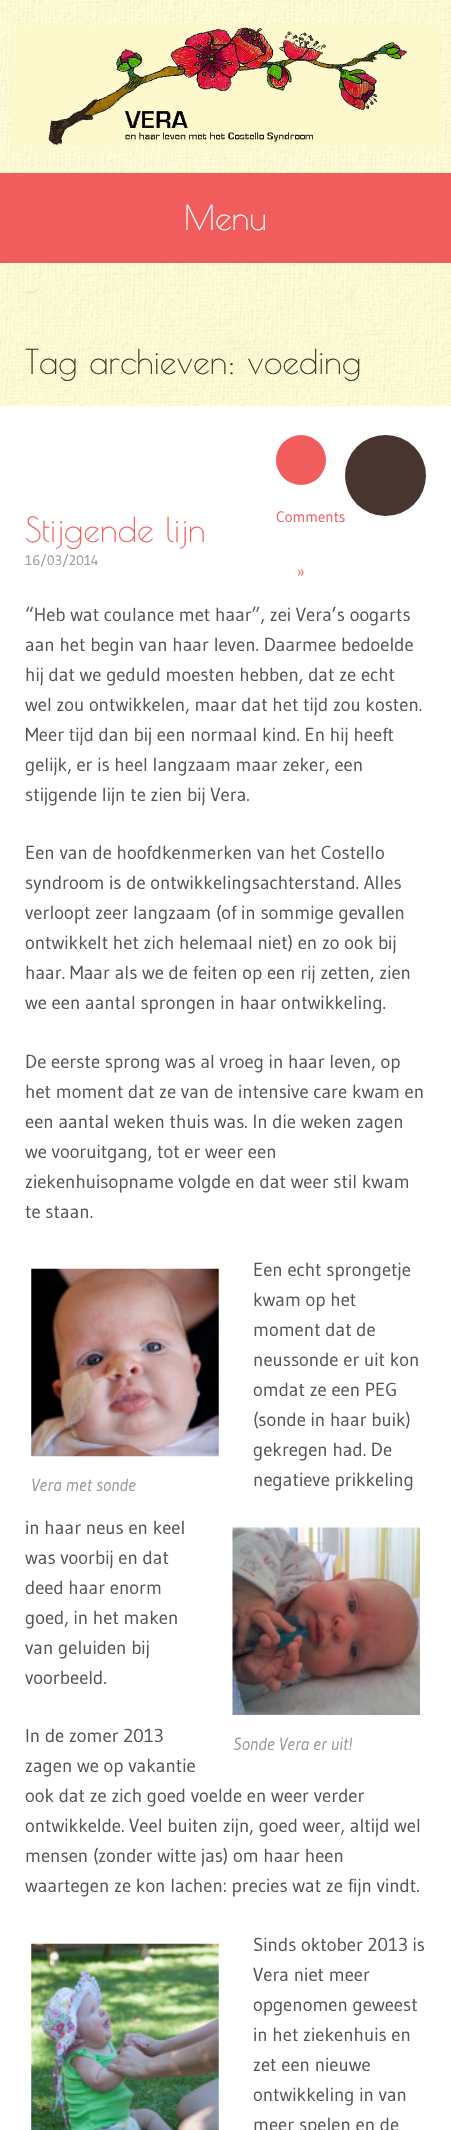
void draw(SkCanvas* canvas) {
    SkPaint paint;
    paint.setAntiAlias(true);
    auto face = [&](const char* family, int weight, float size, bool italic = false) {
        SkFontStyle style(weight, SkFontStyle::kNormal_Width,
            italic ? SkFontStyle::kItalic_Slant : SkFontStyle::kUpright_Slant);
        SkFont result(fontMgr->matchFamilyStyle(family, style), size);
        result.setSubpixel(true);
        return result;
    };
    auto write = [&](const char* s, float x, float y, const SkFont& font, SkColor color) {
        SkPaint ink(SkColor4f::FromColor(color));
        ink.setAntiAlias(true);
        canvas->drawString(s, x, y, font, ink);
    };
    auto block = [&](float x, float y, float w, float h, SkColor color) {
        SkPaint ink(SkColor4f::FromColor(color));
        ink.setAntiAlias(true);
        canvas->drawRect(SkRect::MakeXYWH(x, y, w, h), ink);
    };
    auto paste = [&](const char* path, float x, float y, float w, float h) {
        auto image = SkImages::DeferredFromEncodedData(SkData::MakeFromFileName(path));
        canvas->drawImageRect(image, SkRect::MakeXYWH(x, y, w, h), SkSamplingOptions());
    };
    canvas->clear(SK_ColorWHITE);
    paste("pic1.png", 0, 0, 451, 406);
    paste("pic2.png", 11, 25, 429, 123);
    block(0, 173, 451, 90, SkColorSetRGB(241, 93, 93));
    auto kFont1 = face("Poiret One", 400, 33.75f);
    write("Menu", 184, 230, kFont1, SK_ColorWHITE);
    write("Tag archieven: voeding", 25, 374, kFont1, SkColorSetRGB(73, 53, 47));
    paint.setColor(SkColorSetRGB(73, 53, 47));
    canvas->drawCircle(385.5f, 475.5f, 40.5f, paint);
    write("Stijgende lijn", 25, 542, kFont1, SkColorSetRGB(241, 93, 93));
    paint.setColor(SkColorSetRGB(241, 93, 93));
    canvas->drawCircle(301, 460, 25, paint);
    auto kFont2 = face("Gudea", 400, 15);
    write("Comments", 276, 522, kFont2, SkColorSetRGB(241, 93, 93));
    write("»", 297, 577, kFont2, SkColorSetRGB(241, 93, 93));
    auto kFont3 = face("Gudea", 400, 13.75f);
    write("16/03/2014", 25, 565, kFont3, SkColorSetRGB(153, 153, 153));
    auto kFont4 = face("Gudea", 400, 18.75f);
    write("“Heb wat coulance met haar”, zei Vera’s oogarts", 25, 621, kFont4, SkColorSetRGB(85, 85, 85));
    write("aan het begin van haar leven. Daarmee bedoelde", 25, 651, kFont4, SkColorSetRGB(85, 85, 85));
    write("hij dat we geduld moesten hebben, dat ze echt", 25, 681, kFont4, SkColorSetRGB(85, 85, 85));
    write("wel zou ontwikkelen, maar dat het tijd zou kosten.", 25, 711, kFont4, SkColorSetRGB(85, 85, 85));
    write("Meer tijd dan bij een normaal kind. En hij heeft", 25, 741, kFont4, SkColorSetRGB(85, 85, 85));
    write("gelijk, er is heel langzaam maar zeker, een", 25, 771, kFont4, SkColorSetRGB(85, 85, 85));
    write("stijgende lijn te zien bij Vera.", 25, 801, kFont4, SkColorSetRGB(85, 85, 85));
    write("Een van de hoofdkenmerken van het Costello", 25, 859, kFont4, SkColorSetRGB(85, 85, 85));
    write("syndroom is de ontwikkelingsachterstand. Alles", 25, 889, kFont4, SkColorSetRGB(85, 85, 85));
    write("verloopt zeer langzaam (of in sommige gevallen", 25, 919, kFont4, SkColorSetRGB(85, 85, 85));
    write("ontwikkelt het zich helemaal niet) en zo ook bij", 25, 949, kFont4, SkColorSetRGB(85, 85, 85));
    write("haar. Maar als we de feiten op een rij zetten, zien", 25, 979, kFont4, SkColorSetRGB(85, 85, 85));
    write("we een aantal sprongen in haar ontwikkeling.", 25, 1009, kFont4, SkColorSetRGB(85, 85, 85));
    write("De eerste sprong was al vroeg in haar leven, op", 25, 1068, kFont4, SkColorSetRGB(85, 85, 85));
    write("het moment dat ze van de intensive care kwam en", 25, 1098, kFont4, SkColorSetRGB(85, 85, 85));
    write("een aantal weken thuis was. In die weken zagen", 25, 1128, kFont4, SkColorSetRGB(85, 85, 85));
    write("we vooruitgang, tot er weer een", 25, 1158, kFont4, SkColorSetRGB(85, 85, 85));
    write("ziekenhuisopname volgde en dat weer stil kwam", 25, 1188, kFont4, SkColorSetRGB(85, 85, 85));
    write("te staan.", 25, 1218, kFont4, SkColorSetRGB(85, 85, 85));
    write("Een echt sprongetje", 253, 1276, kFont4, SkColorSetRGB(85, 85, 85));
    write("kwam op het", 253, 1306, kFont4, SkColorSetRGB(85, 85, 85));
    write("moment dat de", 253, 1336, kFont4, SkColorSetRGB(85, 85, 85));
    write("neussonde er uit kon", 253, 1366, kFont4, SkColorSetRGB(85, 85, 85));
    write("omdat ze een PEG", 253, 1396, kFont4, SkColorSetRGB(85, 85, 85));
    write("(sonde in haar buik)", 253, 1426, kFont4, SkColorSetRGB(85, 85, 85));
    write("gekregen had. De", 253, 1456, kFont4, SkColorSetRGB(85, 85, 85));
    write("negatieve prikkeling", 253, 1486, kFont4, SkColorSetRGB(85, 85, 85));
    write("in haar neus en keel", 25, 1534, kFont4, SkColorSetRGB(85, 85, 85));
    write("was voorbij en dat", 25, 1564, kFont4, SkColorSetRGB(85, 85, 85));
    write("deed haar enorm", 25, 1594, kFont4, SkColorSetRGB(85, 85, 85));
    write("goed, in het maken", 25, 1624, kFont4, SkColorSetRGB(85, 85, 85));
    write("van geluiden bij", 25, 1654, kFont4, SkColorSetRGB(85, 85, 85));
    write("voorbeeld.", 25, 1684, kFont4, SkColorSetRGB(85, 85, 85));
    paste("pic3.png", 31, 1268, 188, 189);
    auto kFont5 = face("Gudea", 400, 17.5f, true);
    write("Vera met sonde", 31, 1491, kFont5, SkColorSetRGB(153, 153, 153));
    write("In de zomer 2013", 25, 1742, kFont4, SkColorSetRGB(85, 85, 85));
    write("zagen we op vakantie", 25, 1772, kFont4, SkColorSetRGB(85, 85, 85));
    write("ook dat ze zich goed voelde en weer verder", 25, 1802, kFont4, SkColorSetRGB(85, 85, 85));
    write("ontwikkelde. Veel buiten zijn, goed weer, altijd wel", 25, 1832, kFont4, SkColorSetRGB(85, 85, 85));
    write("mensen (zonder witte jas) om haar heen", 25, 1862, kFont4, SkColorSetRGB(85, 85, 85));
    write("waartegen ze kon lachen: precies wat ze fijn vindt.", 25, 1892, kFont4, SkColorSetRGB(85, 85, 85));
    paste("pic4.png", 232, 1527, 188, 188);
    write("Sonde Vera er uit!", 233, 1750, kFont5, SkColorSetRGB(153, 153, 153));
    paste("pic5.png", 31, 1943, 188, 187);
    write("Sinds oktober 2013 is", 253, 1951, kFont4, SkColorSetRGB(85, 85, 85));
    write("Vera niet meer", 253, 1981, kFont4, SkColorSetRGB(85, 85, 85));
    write("opgenomen geweest", 253, 2011, kFont4, SkColorSetRGB(85, 85, 85));
    write("in het ziekenhuis en", 253, 2041, kFont4, SkColorSetRGB(85, 85, 85));
    write("zet een nieuwe", 253, 2071, kFont4, SkColorSetRGB(85, 85, 85));
    write("ontwikkeling in van", 253, 2101, kFont4, SkColorSetRGB(85, 85, 85));
    write("meer spelen en de", 253, 2131, kFont4, SkColorSetRGB(85, 85, 85));
}
